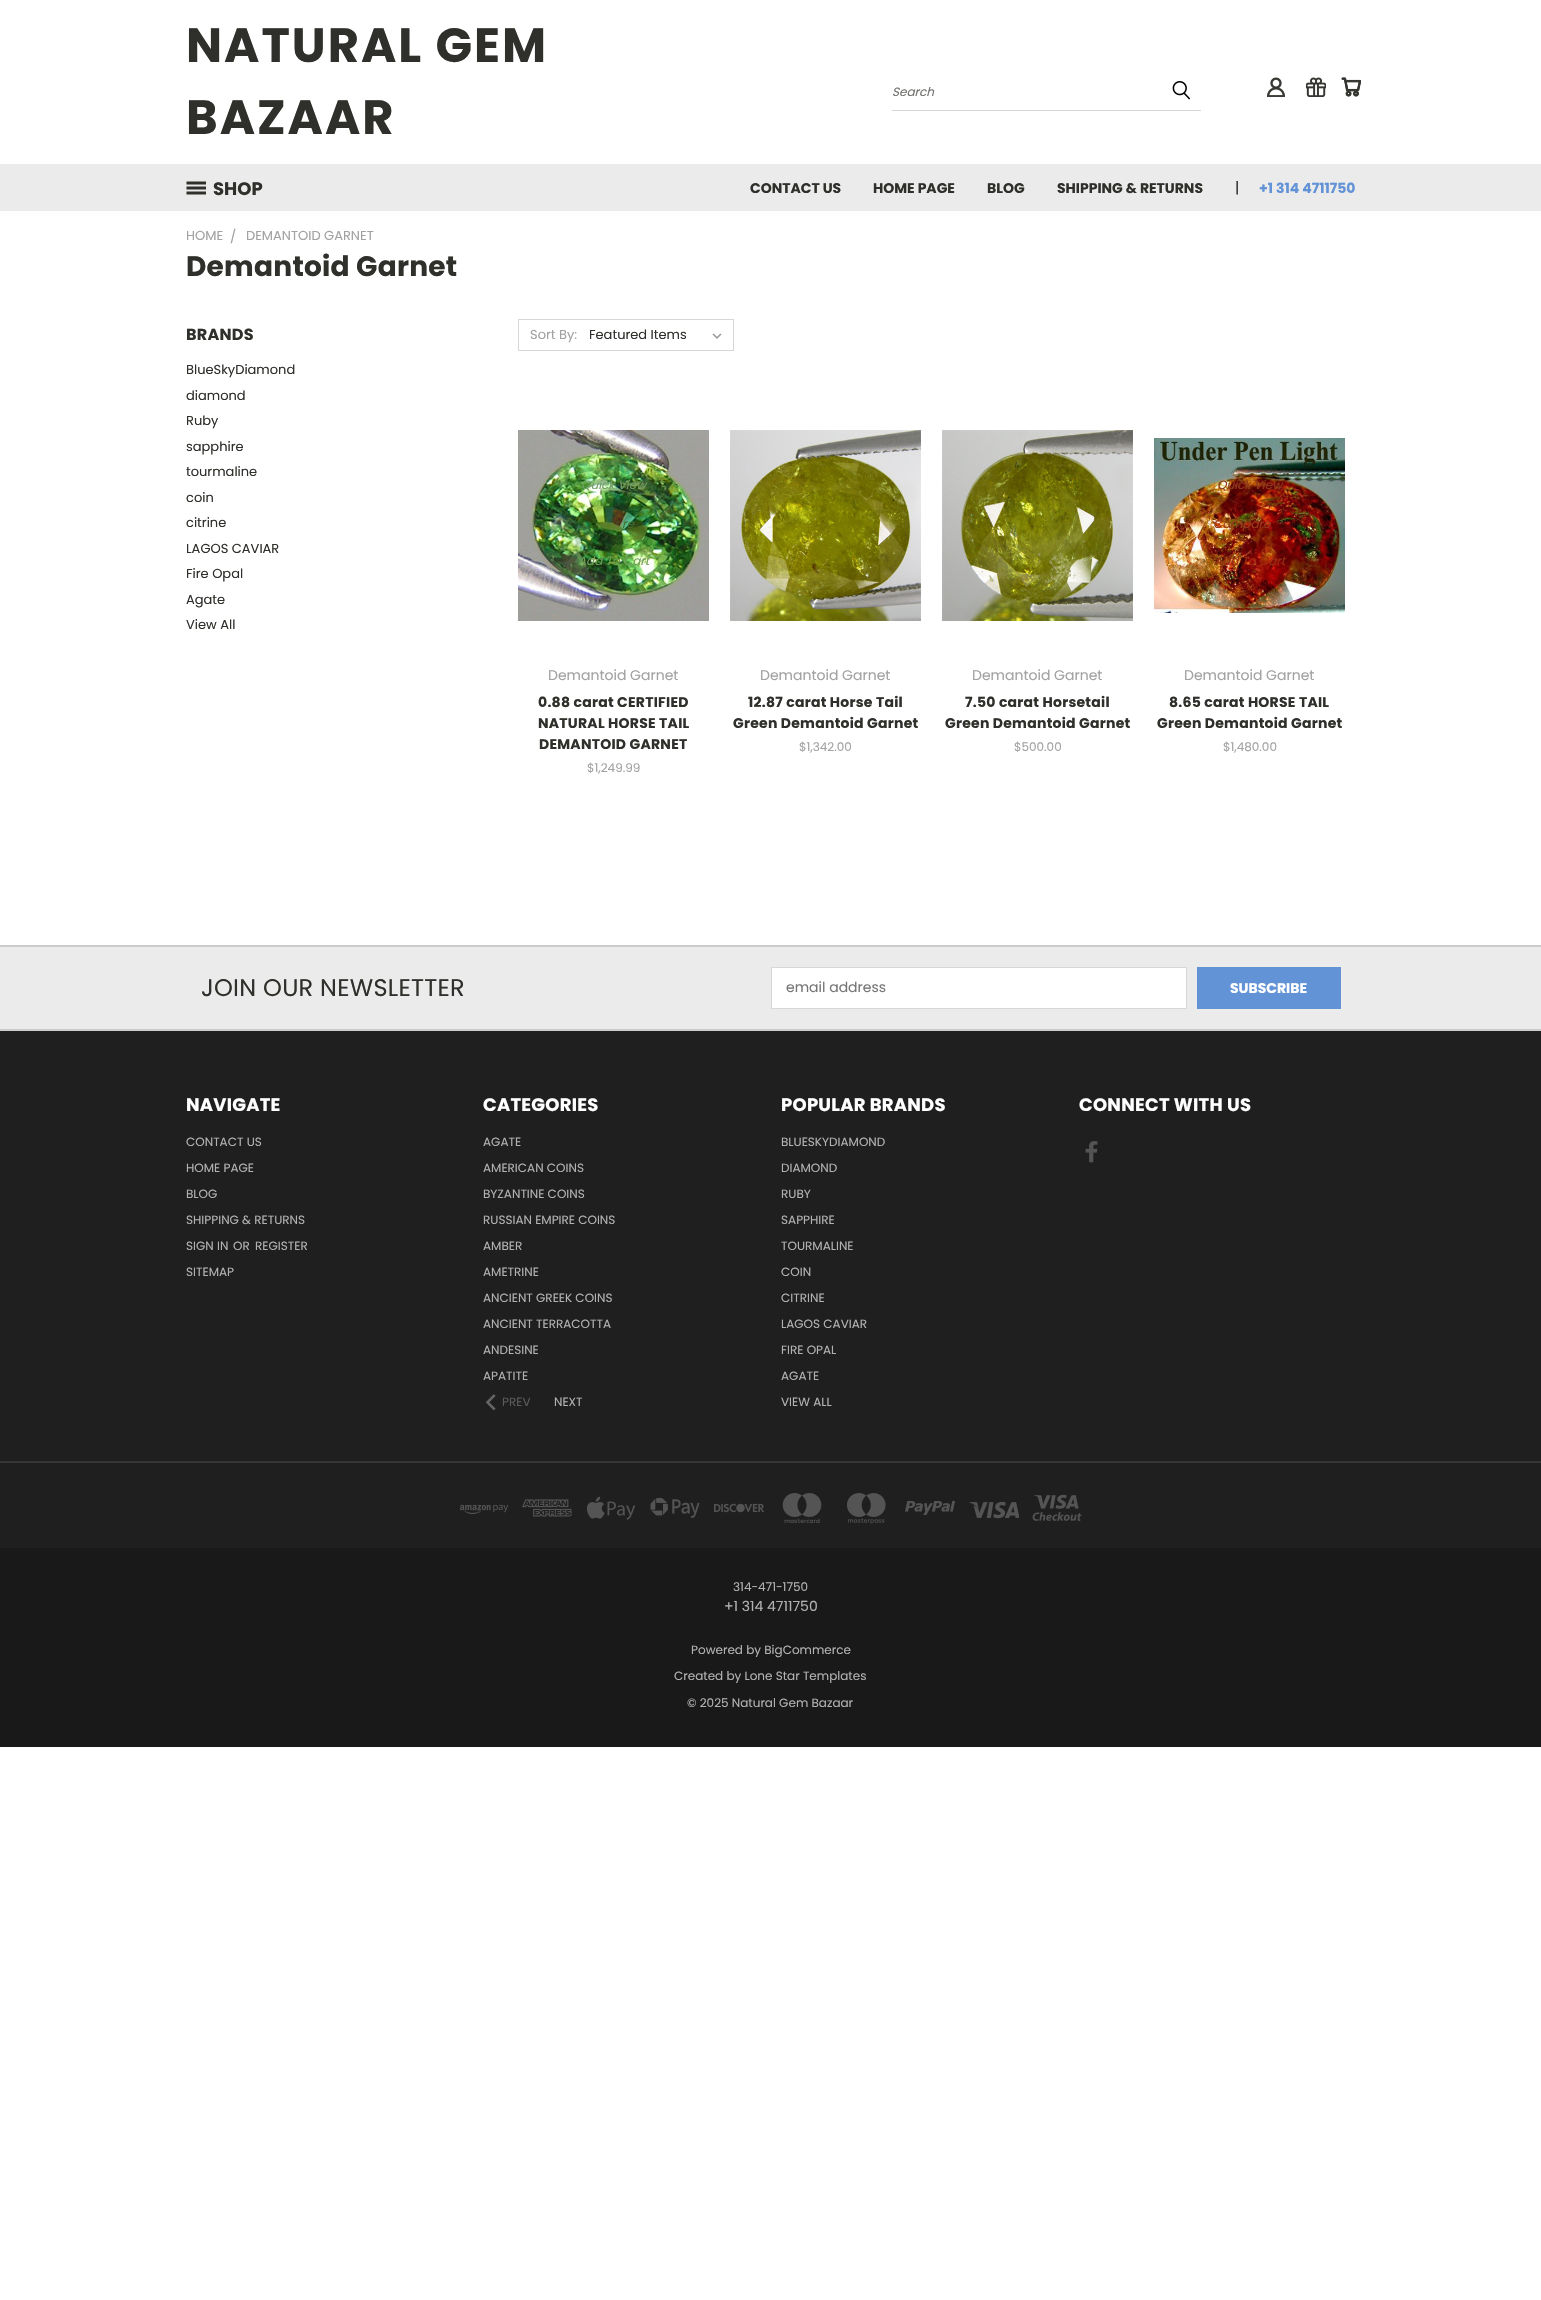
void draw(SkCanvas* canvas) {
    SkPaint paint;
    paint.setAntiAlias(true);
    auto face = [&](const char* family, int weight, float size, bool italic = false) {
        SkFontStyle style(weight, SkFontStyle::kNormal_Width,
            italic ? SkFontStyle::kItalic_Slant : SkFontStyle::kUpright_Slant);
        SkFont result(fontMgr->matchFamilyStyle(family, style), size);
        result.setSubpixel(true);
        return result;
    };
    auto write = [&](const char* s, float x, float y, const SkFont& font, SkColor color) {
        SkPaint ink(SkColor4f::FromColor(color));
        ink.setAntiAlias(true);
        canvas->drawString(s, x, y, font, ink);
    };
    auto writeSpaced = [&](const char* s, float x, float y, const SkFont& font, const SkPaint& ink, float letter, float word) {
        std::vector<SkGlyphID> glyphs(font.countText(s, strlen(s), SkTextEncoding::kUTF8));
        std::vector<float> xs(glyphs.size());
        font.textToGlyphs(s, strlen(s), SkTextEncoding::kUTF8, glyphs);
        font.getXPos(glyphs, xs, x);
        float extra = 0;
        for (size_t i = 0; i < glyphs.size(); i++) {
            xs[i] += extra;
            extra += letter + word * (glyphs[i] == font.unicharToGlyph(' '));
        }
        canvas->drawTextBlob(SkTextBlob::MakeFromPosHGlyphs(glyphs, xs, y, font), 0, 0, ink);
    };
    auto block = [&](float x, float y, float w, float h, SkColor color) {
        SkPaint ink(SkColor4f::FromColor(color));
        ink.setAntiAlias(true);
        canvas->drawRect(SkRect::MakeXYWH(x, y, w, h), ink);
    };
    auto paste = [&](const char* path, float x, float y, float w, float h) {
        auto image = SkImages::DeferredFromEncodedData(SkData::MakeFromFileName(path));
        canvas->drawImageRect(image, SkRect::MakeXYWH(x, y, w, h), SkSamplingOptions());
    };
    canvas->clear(SK_ColorWHITE);
    auto kFont1 = face("Poppins", 700, 48);
    paint.setColor(SkColorSetRGB(47, 47, 43));
    writeSpaced("NATURAL GEM", 186, 62, kFont1, paint, 2, 0);
    writeSpaced("BAZAAR", 186, 134, kFont1, paint, 2, 0);
    block(892, 110, 309, 1, SkColorSetRGB(215, 215, 215));
    auto kFont2 = face("Poppins", 400, 12, true);
    write("Search", 892, 96, kFont2, SkColorSetRGB(112, 112, 110));
    paste("pic1.png", 1172, 81, 18, 19);
    paste("pic2.png", 1267, 77, 18, 20);
    paste("pic3.png", 1306, 77, 20, 20);
    paste("pic4.png", 1341, 77, 20, 20);
    block(0, 164, 1541, 47, SkColorSetRGB(235, 235, 235));
    paste("pic5.png", 186, 181, 20, 14);
    auto kFont3 = face("Poppins", 700, 18);
    write("SHOP", 213, 195, kFont3, SkColorSetRGB(47, 47, 43));
    auto kFont4 = face("Poppins", 700, 14);
    write("CONTACT US", 750, 193, kFont4, SkColorSetRGB(47, 47, 43));
    write("HOME PAGE", 873, 193, kFont4, SkColorSetRGB(47, 47, 43));
    write("BLOG", 987, 193, kFont4, SkColorSetRGB(47, 47, 43));
    write("SHIPPING & RETURNS", 1057, 193, kFont4, SkColorSetRGB(47, 47, 43));
    auto kFont5 = face("Poppins", 400, 15);
    write("|", 1235, 193, kFont5, SkColorSetRGB(47, 47, 43));
    write("+1 314 4711750", 1259, 193, kFont4, SkColorSetRGB(98, 147, 214));
    auto kFont6 = face("Poppins", 400, 13);
    write("HOME", 186, 240, kFont6, SkColorSetRGB(162, 162, 162));
    write("/", 230, 241, kFont6, SkColorSetRGB(162, 162, 162));
    write("DEMANTOID GARNET", 246, 240, kFont6, SkColorSetRGB(162, 162, 162));
    auto kFont7 = face("Poppins", 700, 28);
    writeSpaced("Demantoid Garnet", 186, 276, kFont7, paint, 0.25f, 0);
    auto kFont8 = face("Poppins", 700, 16);
    writeSpaced("BRANDS", 186, 340, kFont8, paint, 0.25f, 0);
    write("BlueSkyDiamond", 186, 374, kFont6, SkColorSetRGB(47, 47, 43));
    write("diamond", 186, 400, kFont6, SkColorSetRGB(47, 47, 43));
    write("Ruby", 186, 425, kFont6, SkColorSetRGB(47, 47, 43));
    write("sapphire", 186, 451, kFont6, SkColorSetRGB(47, 47, 43));
    write("tourmaline", 186, 476, kFont6, SkColorSetRGB(47, 47, 43));
    write("coin", 186, 502, kFont6, SkColorSetRGB(47, 47, 43));
    write("citrine", 186, 527, kFont6, SkColorSetRGB(47, 47, 43));
    write("LAGOS CAVIAR", 186, 553, kFont6, SkColorSetRGB(47, 47, 43));
    write("Fire Opal", 186, 578, kFont6, SkColorSetRGB(47, 47, 43));
    write("Agate", 186, 604, kFont6, SkColorSetRGB(47, 47, 43));
    write("View All", 186, 629, kFont6, SkColorSetRGB(47, 47, 43));
    paint.setStyle(SkPaint::kStroke_Style);
    paint.setStrokeWidth(1);
    paint.setColor(SkColorSetRGB(215, 215, 215));
    canvas->drawRect(SkRect::MakeXYWH(518.5f, 319.5f, 215, 31), paint);
    write("Sort By:", 530, 339, kFont6, SkColorSetRGB(162, 162, 162));
    paste("pic6.png", 712, 333, 10, 6);
    write("Featured Items", 589, 339, kFont6, SkColorSetRGB(47, 47, 43));
    paste("pic7.png", 518, 430, 191, 191);
    write("Quick View", 581, 489, kFont2, SkColorSetRGB(116, 159, 103));
    write("re", 622, 528, kFont2, SkColorSetRGB(67, 112, 49));
    write("Add To Cart", 578, 565, kFont2, SkColorSetRGB(110, 158, 89));
    auto kFont9 = face("Poppins", 400, 14);
    write("Demantoid Garnet", 548, 680, kFont9, SkColorSetRGB(162, 162, 162));
    paint.setStyle(SkPaint::kFill_Style);
    paint.setColor(SkColorSetRGB(47, 47, 43));
    writeSpaced("0.88 carat CERTIFIED", 538, 707, kFont4, paint, 0.25f, 0);
    writeSpaced("NATURAL HORSE TAIL", 538, 728, kFont4, paint, 0.25f, 0);
    writeSpaced("DEMANTOID GARNET", 539, 749, kFont4, paint, 0.25f, 0);
    auto kFont10 = face("Poppins", 400, 12);
    write("$1,249.99", 587, 772, kFont10, SkColorSetRGB(162, 162, 162));
    paste("pic8.png", 730, 430, 191, 191);
    write("Demantoid Garnet", 760, 680, kFont9, SkColorSetRGB(162, 162, 162));
    writeSpaced("12.87 carat Horse Tail", 748, 707, kFont4, paint, 0.25f, 0);
    writeSpaced("Green Demantoid Garnet", 733, 728, kFont4, paint, 0.25f, 0);
    write("$1,342.00", 799, 751, kFont10, SkColorSetRGB(162, 162, 162));
    paste("pic9.png", 942, 430, 191, 191);
    write("Demantoid Garnet", 972, 680, kFont9, SkColorSetRGB(162, 162, 162));
    writeSpaced("7.50 carat Horsetail", 965, 707, kFont4, paint, 0.25f, 0);
    writeSpaced("Green Demantoid Garnet", 945, 728, kFont4, paint, 0.25f, 0);
    write("$500.00", 1014, 751, kFont10, SkColorSetRGB(162, 162, 162));
    paste("pic10.png", 1154, 438, 191, 175);
    write("Quick View", 1217, 489, kFont2, SkColorSetRGB(141, 59, 30));
    write("Compare", 1213, 528, kFont2, SkColorSetRGB(150, 60, 25));
    write("Add To Cart", 1214, 565, kFont2, SkColorSetRGB(152, 45, 15));
    write("Demantoid Garnet", 1184, 680, kFont9, SkColorSetRGB(162, 162, 162));
    writeSpaced("8.65 carat HORSE TAIL", 1169, 707, kFont4, paint, 0.25f, 0);
    writeSpaced("Green Demantoid Garnet", 1157, 728, kFont4, paint, 0.25f, 0);
    write("$1,480.00", 1223, 751, kFont10, SkColorSetRGB(162, 162, 162));
    block(0, 947, 1541, 82, SkColorSetRGB(235, 235, 235));
    block(0, 945, 1541, 2, SkColorSetRGB(205, 204, 204));
    auto kFont11 = face("Poppins", 400, 24);
    writeSpaced("JOIN OUR NEWSLETTER", 201, 996, kFont11, paint, 0.25f, 0);
    paint.setColor(SK_ColorWHITE);
    canvas->drawRect(SkRect::MakeXYWH(771.5f, 967.5f, 415, 41), paint);
    paint.setStyle(SkPaint::kStroke_Style);
    paint.setColor(SkColorSetRGB(215, 215, 215));
    canvas->drawRect(SkRect::MakeXYWH(771.5f, 967.5f, 415, 41), paint);
    write("email address", 786, 992, kFont9, SkColorSetRGB(117, 117, 117));
    block(1197, 967, 144, 42, SkColorSetRGB(98, 147, 214));
    write("SUBSCRIBE", 1230, 993, kFont4, SK_ColorWHITE);
    block(0, 1031, 1541, 517, SkColorSetRGB(31, 31, 31));
    block(0, 1029, 1541, 2, SkColorSetRGB(205, 204, 204));
    paint.setStyle(SkPaint::kFill_Style);
    paint.setColor(SK_ColorWHITE);
    writeSpaced("NAVIGATE", 186, 1111, kFont3, paint, 0.25f, 0);
    write("CONTACT US", 186, 1146, kFont10, SkColorSetRGB(178, 178, 178));
    write("HOME PAGE", 186, 1172, kFont10, SkColorSetRGB(178, 178, 178));
    write("BLOG", 186, 1198, kFont10, SkColorSetRGB(178, 178, 178));
    write("SHIPPING & RETURNS", 186, 1224, kFont10, SkColorSetRGB(178, 178, 178));
    write("SIGN IN", 186, 1250, kFont10, SkColorSetRGB(178, 178, 178));
    write("OR", 233, 1250, kFont10, SkColorSetRGB(178, 178, 178));
    write("REGISTER", 255, 1250, kFont10, SkColorSetRGB(178, 178, 178));
    write("SITEMAP", 186, 1276, kFont10, SkColorSetRGB(178, 178, 178));
    writeSpaced("CATEGORIES", 483, 1111, kFont3, paint, 0.25f, 0);
    write("AGATE", 483, 1146, kFont10, SkColorSetRGB(178, 178, 178));
    write("AMERICAN COINS", 483, 1172, kFont10, SkColorSetRGB(178, 178, 178));
    write("BYZANTINE COINS", 483, 1198, kFont10, SkColorSetRGB(178, 178, 178));
    write("RUSSIAN EMPIRE COINS", 483, 1224, kFont10, SkColorSetRGB(178, 178, 178));
    write("AMBER", 483, 1250, kFont10, SkColorSetRGB(178, 178, 178));
    write("AMETRINE", 483, 1276, kFont10, SkColorSetRGB(178, 178, 178));
    write("ANCIENT GREEK COINS", 483, 1302, kFont10, SkColorSetRGB(178, 178, 178));
    write("ANCIENT TERRACOTTA", 483, 1328, kFont10, SkColorSetRGB(178, 178, 178));
    write("ANDESINE", 483, 1354, kFont10, SkColorSetRGB(178, 178, 178));
    write("APATITE", 483, 1380, kFont10, SkColorSetRGB(178, 178, 178));
    paste("pic11.png", 486, 1394, 10, 16);
    write("PREV", 502, 1406, kFont10, SkColorSetRGB(90, 90, 90));
    write("NEXT", 554, 1406, kFont10, SkColorSetRGB(178, 178, 178));
    writeSpaced("POPULAR BRANDS", 781, 1111, kFont3, paint, 0.25f, 0);
    write("BLUESKYDIAMOND", 781, 1146, kFont10, SkColorSetRGB(178, 178, 178));
    write("DIAMOND", 781, 1172, kFont10, SkColorSetRGB(178, 178, 178));
    write("RUBY", 781, 1198, kFont10, SkColorSetRGB(178, 178, 178));
    write("SAPPHIRE", 781, 1224, kFont10, SkColorSetRGB(178, 178, 178));
    write("TOURMALINE", 781, 1250, kFont10, SkColorSetRGB(178, 178, 178));
    write("COIN", 781, 1276, kFont10, SkColorSetRGB(178, 178, 178));
    write("CITRINE", 781, 1302, kFont10, SkColorSetRGB(178, 178, 178));
    write("LAGOS CAVIAR", 781, 1328, kFont10, SkColorSetRGB(178, 178, 178));
    write("FIRE OPAL", 781, 1354, kFont10, SkColorSetRGB(178, 178, 178));
    write("AGATE", 781, 1380, kFont10, SkColorSetRGB(178, 178, 178));
    write("VIEW ALL", 781, 1406, kFont10, SkColorSetRGB(178, 178, 178));
    writeSpaced("CONNECT WITH US", 1079, 1111, kFont3, paint, 0.25f, 0);
    paste("pic12.png", 1085, 1141, 13, 22);
    block(0, 1461, 1541, 2, SkColorSetRGB(54, 54, 54));
    paste("pic13.png", 460, 1504, 49, 10);
    paste("pic14.png", 522, 1499, 50, 18);
    paste("pic15.png", 587, 1496, 49, 24);
    paste("pic16.png", 650, 1498, 50, 20);
    paste("pic17.png", 714, 1503, 50, 10);
    paste("pic18.png", 782, 1493, 40, 30);
    paste("pic19.png", 847, 1493, 39, 31);
    paste("pic20.png", 905, 1501, 50, 14);
    paste("pic21.png", 969, 1501, 50, 18);
    paste("pic22.png", 1032, 1494, 50, 27);
    block(0, 1548, 1541, 199, SkColorSetRGB(25, 25, 25));
    write("314-471-1750", 733, 1591, kFont10, SkColorSetRGB(178, 178, 178));
    write("+1 314 4711750", 724, 1611, kFont9, SkColorSetRGB(178, 178, 178));
    write("Powered by BigCommerce", 691, 1654, kFont10, SkColorSetRGB(178, 178, 178));
    write("Created by Lone Star Templates", 674, 1680, kFont10, SkColorSetRGB(178, 178, 178));
    write("© 2025 Natural Gem Bazaar", 687, 1707, kFont10, SkColorSetRGB(178, 178, 178));
}
